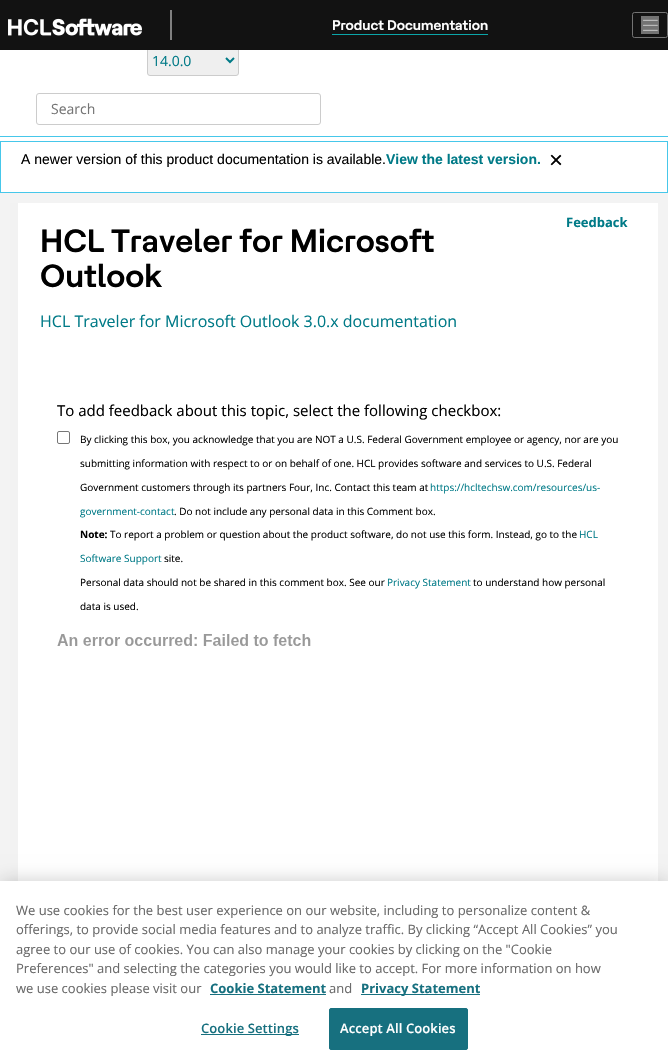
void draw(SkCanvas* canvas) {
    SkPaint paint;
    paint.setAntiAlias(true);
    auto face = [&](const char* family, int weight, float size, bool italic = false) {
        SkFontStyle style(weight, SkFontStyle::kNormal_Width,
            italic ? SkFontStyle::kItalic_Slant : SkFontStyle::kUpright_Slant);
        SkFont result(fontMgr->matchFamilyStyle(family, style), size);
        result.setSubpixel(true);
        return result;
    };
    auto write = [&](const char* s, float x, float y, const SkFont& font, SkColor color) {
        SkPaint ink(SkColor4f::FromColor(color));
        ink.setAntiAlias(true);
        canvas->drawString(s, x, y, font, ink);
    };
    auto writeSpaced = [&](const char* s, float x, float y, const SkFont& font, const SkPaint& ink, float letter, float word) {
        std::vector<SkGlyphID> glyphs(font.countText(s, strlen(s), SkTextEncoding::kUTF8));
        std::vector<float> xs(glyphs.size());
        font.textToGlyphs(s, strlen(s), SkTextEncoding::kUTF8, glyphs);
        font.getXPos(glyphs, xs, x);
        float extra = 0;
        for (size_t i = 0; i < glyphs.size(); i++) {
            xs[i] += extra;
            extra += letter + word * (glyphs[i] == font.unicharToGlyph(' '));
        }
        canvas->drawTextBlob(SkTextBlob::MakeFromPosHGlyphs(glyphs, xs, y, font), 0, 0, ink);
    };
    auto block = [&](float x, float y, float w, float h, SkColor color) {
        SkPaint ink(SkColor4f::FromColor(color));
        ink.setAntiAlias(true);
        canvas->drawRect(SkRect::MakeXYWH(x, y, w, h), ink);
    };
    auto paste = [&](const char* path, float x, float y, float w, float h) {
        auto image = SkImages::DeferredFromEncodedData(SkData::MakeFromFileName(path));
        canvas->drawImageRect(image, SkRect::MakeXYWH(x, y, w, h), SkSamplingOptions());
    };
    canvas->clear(SK_ColorWHITE);
    paint.setColor(SkColorSetRGB(239, 239, 239));
    canvas->drawRoundRect(SkRect::MakeXYWH(147.5f, 45.5f, 91, 30), 2.5f, 2.5f, paint);
    paint.setStyle(SkPaint::kStroke_Style);
    paint.setStrokeWidth(1);
    paint.setColor(SkColorSetRGB(204, 204, 204));
    canvas->drawRoundRect(SkRect::MakeXYWH(147.5f, 45.5f, 91, 30), 2.5f, 2.5f, paint);
    block(0, 0, 668, 50, SkColorSetRGB(18, 18, 18));
    paste("pic1.png", 8, 18, 134, 18);
    block(170, 10, 2, 30, SkColorSetRGB(128, 128, 128));
    auto kFont1 = face("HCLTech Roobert", 700, 14);
    write("Product Documentation", 332, 30, kFont1, SK_ColorWHITE);
    block(332, 34, 156, 1, SkColorSetRGB(11, 165, 168));
    paint.setColor(SkColorSetRGB(115, 115, 115));
    canvas->drawRoundRect(SkRect::MakeXYWH(632.5f, 12.5f, 35, 25), 2, 2, paint);
    block(641, 16, 18, 18, SkColorSetRGB(115, 115, 115));
    paste("pic2.png", 643, 19, 15, 12);
    block(0, 136, 668, 1, SkColorSetRGB(70, 199, 234));
    paint.setStrokeWidth(2);
    paint.setColor(SkColorSetRGB(0, 122, 135));
    canvas->drawPath(SkPathBuilder().moveTo(226, 58).lineTo(230, 62).lineTo(234, 58).detach(), paint);
    auto kFont2 = face("Open Sans", 400, 14);
    write("14.0.0", 152, 66, kFont2, SkColorSetRGB(0, 122, 135));
    paint.setStrokeWidth(1);
    paint.setColor(SkColorSetRGB(204, 204, 204));
    canvas->drawRoundRect(SkRect::MakeXYWH(36.5f, 93.5f, 284, 31), 2.5f, 2.5f, paint);
    write("Search", 51, 114, kFont2, SkColorSetRGB(117, 117, 117));
    paint.setColor(SkColorSetRGB(70, 199, 234));
    canvas->drawRect(SkRect::MakeXYWH(0.5f, 141.5f, 667, 51), paint);
    auto kFont3 = face("Liberation Sans", 400, 14);
    write("A newer version of this product documentation is available.", 21, 164, kFont3, SK_ColorBLACK);
    auto kFont4 = face("Liberation Sans", 700, 14);
    write("View the latest version.", 386, 164, kFont4, SkColorSetRGB(0, 122, 135));
    auto kFont5 = face("Liberation Sans", 400, 24);
    write("×", 549, 168, kFont5, SK_ColorBLACK);
    paint.setStrokeWidth(10);
    paint.setColor(SkColorSetRGB(243, 243, 243));
    canvas->drawRect(SkRect::MakeXYWH(5, 198, 658, 839), paint);
    block(10, 203, 8, 678, SkColorSetRGB(242, 242, 242));
    auto kFont6 = face("Open Sans", 700, 13);
    write("Feedback", 566, 227, kFont6, SkColorSetRGB(0, 122, 135));
    auto kFont7 = face("HCLTech Roobert", 700, 32.25f);
    write("HCL Traveler for Microsoft", 40, 252, kFont7, SK_ColorBLACK);
    write("Outlook", 40, 287, kFont7, SK_ColorBLACK);
    auto kFont8 = face("Open Sans", 400, 16);
    write("HCL Traveler for Microsoft Outlook 3.0.x documentation", 40, 327, kFont8, SkColorSetRGB(0, 122, 135));
    auto kFont9 = face("Open Sans", 400, 15);
    write("To add feedback about this topic, select the following checkbox:", 57, 416, kFont9, SK_ColorBLACK);
    paint.setStrokeWidth(1);
    paint.setColor(SkColorSetRGB(118, 118, 118));
    canvas->drawRoundRect(SkRect::MakeXYWH(57.5f, 431.5f, 12, 12), 1.5f, 1.5f, paint);
    auto kFont10 = face("Open Sans", 400, 10);
    write("By clicking this box, you acknowledge that you are NOT a U.S. Federal Government employee or agency, nor are you", 80, 443, kFont10, SK_ColorBLACK);
    write("submitting information with respect to or on behalf of one. HCL provides software and services to U.S. Federal", 80, 467, kFont10, SK_ColorBLACK);
    write("Government customers through its partners Four, Inc. Contact this team at", 80, 491, kFont10, SK_ColorBLACK);
    write("https://hcltechsw.com/resources/us-", 430, 491, kFont10, SkColorSetRGB(0, 122, 135));
    write("government-contact", 80, 515, kFont10, SkColorSetRGB(0, 122, 135));
    write(". Do not include any personal data in this Comment box.", 174, 515, kFont10, SK_ColorBLACK);
    auto kFont11 = face("Open Sans", 700, 10);
    write("Note:", 80, 538, kFont11, SK_ColorBLACK);
    write("To report a problem or question about the product software, do not use this form. Instead, go to the", 110, 538, kFont10, SK_ColorBLACK);
    write("HCL", 579, 538, kFont10, SkColorSetRGB(0, 122, 135));
    write("Software Support", 80, 562, kFont10, SkColorSetRGB(0, 122, 135));
    write("site.", 164, 562, kFont10, SK_ColorBLACK);
    write("Personal data should not be shared in this comment box. See our", 80, 586, kFont10, SK_ColorBLACK);
    write("Privacy Statement", 387, 586, kFont10, SkColorSetRGB(0, 122, 135));
    write("to understand how personal", 473, 586, kFont10, SK_ColorBLACK);
    write("data is used.", 80, 610, kFont10, SK_ColorBLACK);
    paste("pic3.png", 57, 634, 254, 12);
    paint.setStyle(SkPaint::kFill_Style);
    paint.setColor(SkColorSetARGB(51, 0, 0, 0));
    paint.setMaskFilter(SkMaskFilter::MakeBlur(kNormal_SkBlurStyle, 9));
    canvas->drawRect(SkRect::MakeXYWH(0, 881, 668, 179), paint);
    paint.setMaskFilter(nullptr);
    block(0, 881, 668, 179, SK_ColorWHITE);
    auto kFont12 = face("Open Sans", 400, 13);
    write("We use cookies for the best user experience on our website, including to personalize content &", 16, 915, kFont12, SkColorSetRGB(105, 105, 105));
    write("offerings, to provide social media features and to analyze traffic. By clicking “Accept All Cookies” you", 16, 934, kFont12, SkColorSetRGB(105, 105, 105));
    write("agree to our use of cookies. You can also manage your cookies by clicking on the \"Cookie", 16, 954, kFont12, SkColorSetRGB(105, 105, 105));
    write("Preferences\" and selecting the categories you would like to accept. For more information on how", 16, 973, kFont12, SkColorSetRGB(105, 105, 105));
    write("we use cookies please visit our", 16, 993, kFont12, SkColorSetRGB(105, 105, 105));
    write("Cookie Statement", 210, 993, kFont6, SkColorSetRGB(23, 112, 127));
    block(210, 994, 116, 1, SkColorSetRGB(23, 112, 127));
    write("and", 329, 993, kFont12, SkColorSetRGB(105, 105, 105));
    block(361, 994, 119, 1, SkColorSetRGB(23, 112, 127));
    write("Privacy Statement", 361, 993, kFont6, SkColorSetRGB(23, 112, 127));
    block(201, 1034, 98, 1, SkColorSetRGB(23, 112, 127));
    auto kFont13 = face("Open Sans", 600, 13);
    paint.setColor(SkColorSetRGB(23, 112, 127));
    writeSpaced("Cookie Settings", 201, 1033, kFont13, paint, 0.1f, 0);
    canvas->drawRoundRect(SkRect::MakeXYWH(329.5f, 1008.5f, 138, 41), 1.5f, 1.5f, paint);
    paint.setStyle(SkPaint::kStroke_Style);
    canvas->drawRoundRect(SkRect::MakeXYWH(329.5f, 1008.5f, 138, 41), 1.5f, 1.5f, paint);
    paint.setStyle(SkPaint::kFill_Style);
    paint.setColor(SK_ColorWHITE);
    writeSpaced("Accept All Cookies", 340, 1033, kFont13, paint, 0.1f, 0);
}
